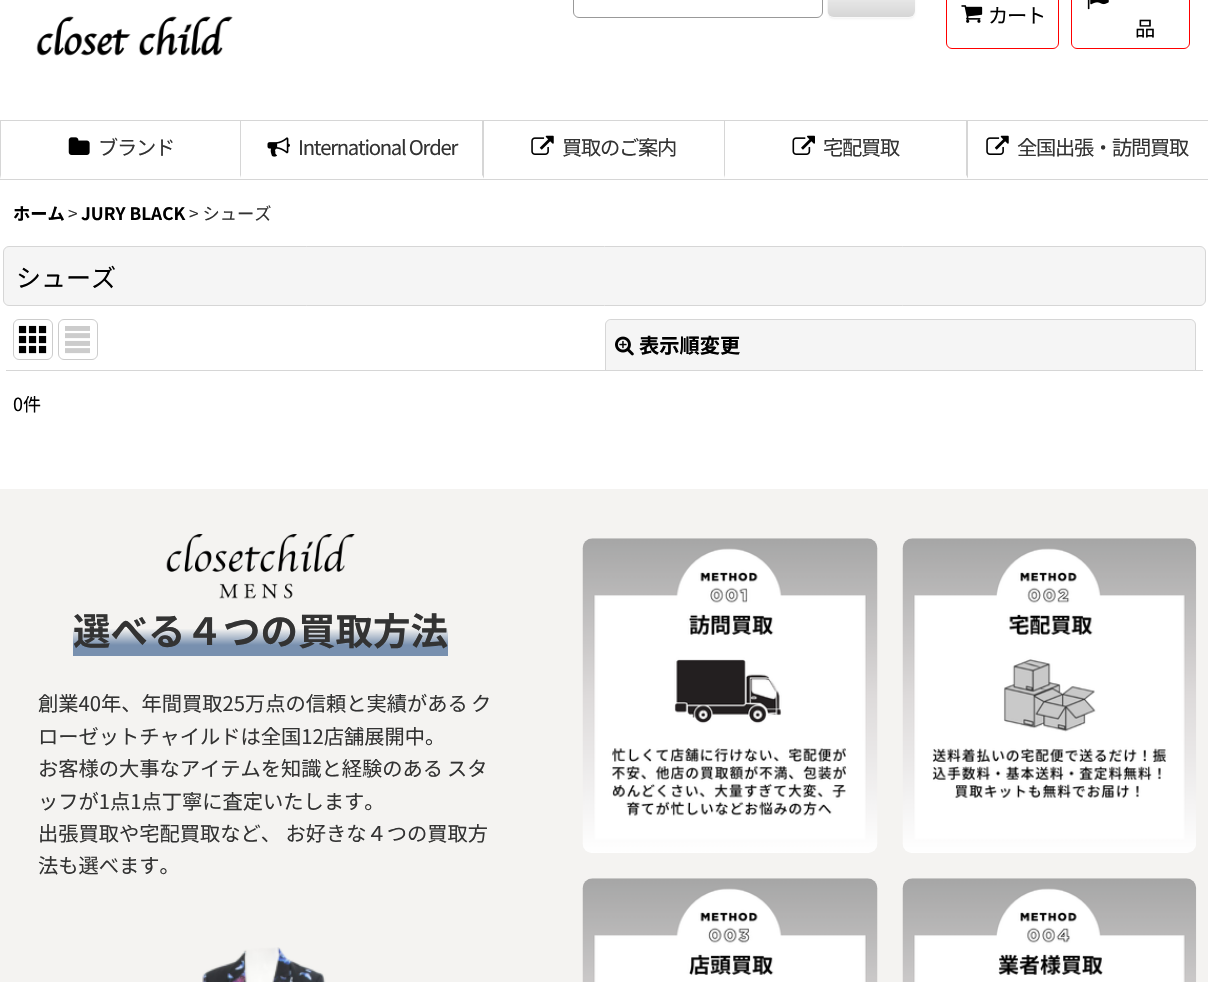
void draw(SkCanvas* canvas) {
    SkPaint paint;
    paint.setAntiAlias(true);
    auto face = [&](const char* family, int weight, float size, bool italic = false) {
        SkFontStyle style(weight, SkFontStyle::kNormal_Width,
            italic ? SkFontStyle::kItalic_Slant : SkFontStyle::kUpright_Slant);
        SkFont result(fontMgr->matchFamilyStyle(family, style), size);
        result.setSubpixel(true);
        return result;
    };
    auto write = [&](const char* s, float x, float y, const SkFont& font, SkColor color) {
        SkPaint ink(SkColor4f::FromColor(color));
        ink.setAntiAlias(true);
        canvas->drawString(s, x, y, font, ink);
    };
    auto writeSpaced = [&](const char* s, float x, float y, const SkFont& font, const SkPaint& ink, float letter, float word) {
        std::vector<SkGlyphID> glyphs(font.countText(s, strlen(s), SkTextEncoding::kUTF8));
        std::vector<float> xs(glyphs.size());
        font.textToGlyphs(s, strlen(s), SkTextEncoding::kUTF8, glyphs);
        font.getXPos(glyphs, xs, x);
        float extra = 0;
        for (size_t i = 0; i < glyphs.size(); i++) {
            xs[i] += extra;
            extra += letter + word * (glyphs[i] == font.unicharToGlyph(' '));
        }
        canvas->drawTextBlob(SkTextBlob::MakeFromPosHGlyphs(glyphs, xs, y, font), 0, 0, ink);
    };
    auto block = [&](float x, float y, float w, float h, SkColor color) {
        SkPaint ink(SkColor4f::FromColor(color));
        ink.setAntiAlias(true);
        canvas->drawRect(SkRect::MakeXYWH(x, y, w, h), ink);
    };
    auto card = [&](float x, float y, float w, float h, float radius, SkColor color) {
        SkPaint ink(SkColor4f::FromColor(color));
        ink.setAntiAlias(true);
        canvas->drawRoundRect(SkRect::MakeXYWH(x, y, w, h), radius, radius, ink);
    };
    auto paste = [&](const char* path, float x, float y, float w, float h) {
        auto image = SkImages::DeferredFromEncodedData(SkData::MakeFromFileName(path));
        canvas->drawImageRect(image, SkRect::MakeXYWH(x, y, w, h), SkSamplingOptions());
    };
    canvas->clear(SK_ColorWHITE);
    block(0, 120, 1208, 1, SkColorSetRGB(214, 214, 214));
    paint.setStyle(SkPaint::kStroke_Style);
    paint.setStrokeWidth(1);
    paint.setColor(SkColorSetRGB(153, 153, 153));
    canvas->drawRoundRect(SkRect::MakeXYWH(573.5f, -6.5f, 249, 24), 5.5f, 5.5f, paint);
    paint.setStyle(SkPaint::kFill_Style);
    paint.setColor(SkColorSetARGB(13, 0, 0, 0));
    paint.setMaskFilter(SkMaskFilter::MakeBlur(kNormal_SkBlurStyle, 1));
    canvas->drawRoundRect(SkRect::MakeXYWH(828, -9, 87, 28), 6, 6, paint);
    paint.setMaskFilter(nullptr);
    card(828, -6, 87, 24, 6, SkColorSetRGB(249, 249, 249));
    paste("pic1.png", 827, 0, 88, 17);
    paste("pic2.png", 36, 16, 197, 40);
    paint.setStyle(SkPaint::kStroke_Style);
    paint.setColor(SkColorSetRGB(255, 0, 0));
    canvas->drawRoundRect(SkRect::MakeXYWH(946.5f, -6.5f, 112, 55), 5.5f, 5.5f, paint);
    paste("pic3.png", 961, 5, 22, 18);
    auto kFont1 = face("Noto Sans JP", 400, 20.25f);
    paint.setStyle(SkPaint::kFill_Style);
    paint.setColor(SK_ColorBLACK);
    writeSpaced("カート", 988, 23, kFont1, paint, -1.25f, 0);
    paint.setStyle(SkPaint::kStroke_Style);
    paint.setColor(SkColorSetRGB(255, 0, 0));
    canvas->drawRoundRect(SkRect::MakeXYWH(1071.5f, -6.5f, 118, 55), 5.5f, 5.5f, paint);
    paste("pic4.png", 1087, 0, 22, 10);
    paint.setStyle(SkPaint::kFill_Style);
    paint.setColor(SK_ColorBLACK);
    writeSpaced("品", 1135, 36, kFont1, paint, -1.25f, 0);
    block(0, 179, 1208, 1, SkColorSetRGB(214, 214, 214));
    paint.setColor(SkColorSetRGB(214, 214, 214));
    canvas->drawPath(SkPathBuilder().moveTo(241, 121).lineTo(241, 179).lineTo(240, 175).lineTo(240, 121).close().detach(), paint);
    paint.setColor(SK_ColorWHITE);
    canvas->drawPath(SkPathBuilder().moveTo(241, 179).lineTo(0, 179).lineTo(1, 175).lineTo(240, 175).close().detach(), paint);
    paint.setColor(SkColorSetRGB(214, 214, 214));
    canvas->drawPath(SkPathBuilder().moveTo(0, 179).lineTo(0, 121).lineTo(1, 121).lineTo(1, 175).close().detach(), paint);
    paste("pic5.png", 68, 137, 22, 18);
    paint.setColor(SkColorSetRGB(51, 51, 51));
    writeSpaced("ブランド", 98, 155, kFont1, paint, -1.25f, 0);
    paint.setColor(SkColorSetRGB(214, 214, 214));
    canvas->drawPath(SkPathBuilder().moveTo(484, 121).lineTo(484, 179).lineTo(482, 175).lineTo(482, 121).close().detach(), paint);
    paint.setColor(SK_ColorWHITE);
    canvas->drawPath(SkPathBuilder().moveTo(484, 179).lineTo(241, 179).lineTo(241, 175).lineTo(482, 175).close().detach(), paint);
    paste("pic6.png", 267, 137, 23, 20);
    paint.setColor(SkColorSetRGB(51, 51, 51));
    writeSpaced("International Order", 298, 155, kFont1, paint, -1.25f, 0);
    paint.setColor(SkColorSetRGB(214, 214, 214));
    canvas->drawPath(SkPathBuilder().moveTo(725, 121).lineTo(725, 179).lineTo(724, 175).lineTo(724, 121).close().detach(), paint);
    paint.setColor(SK_ColorWHITE);
    canvas->drawPath(SkPathBuilder().moveTo(725, 179).lineTo(484, 179).lineTo(484, 175).lineTo(724, 175).close().detach(), paint);
    paste("pic7.png", 531, 135, 23, 20);
    paint.setColor(SkColorSetRGB(51, 51, 51));
    writeSpaced("買取のご案内", 562, 155, kFont1, paint, -1.25f, 0);
    paint.setColor(SkColorSetRGB(214, 214, 214));
    canvas->drawPath(SkPathBuilder().moveTo(968, 121).lineTo(968, 179).lineTo(966, 175).lineTo(966, 121).close().detach(), paint);
    paint.setColor(SK_ColorWHITE);
    canvas->drawPath(SkPathBuilder().moveTo(968, 179).lineTo(725, 179).lineTo(725, 175).lineTo(966, 175).close().detach(), paint);
    paste("pic8.png", 792, 135, 23, 20);
    paint.setColor(SkColorSetRGB(51, 51, 51));
    writeSpaced("宅配買取", 823, 155, kFont1, paint, -1.25f, 0);
    paste("pic7.png", 986, 135, 23, 20);
    writeSpaced("全国出張・訪問買取", 1017, 155, kFont1, paint, -1.25f, 0);
    auto kFont2 = face("Noto Sans JP", 700, 17.25f);
    write("ホーム", 13, 220, kFont2, SK_ColorBLACK);
    auto kFont3 = face("Noto Sans JP", 400, 17.25f);
    write(">", 68, 220, kFont3, SkColorSetRGB(51, 51, 51));
    write("JURY BLACK", 81, 220, kFont2, SK_ColorBLACK);
    write("> シューズ", 189, 220, kFont3, SkColorSetRGB(51, 51, 51));
    paint.setColor(SkColorSetRGB(245, 245, 245));
    canvas->drawRoundRect(SkRect::MakeXYWH(3.5f, 246.5f, 1202, 59), 5.5f, 5.5f, paint);
    paint.setStyle(SkPaint::kStroke_Style);
    paint.setColor(SkColorSetRGB(214, 214, 214));
    canvas->drawRoundRect(SkRect::MakeXYWH(3.5f, 246.5f, 1202, 59), 5.5f, 5.5f, paint);
    auto kFont4 = face("Noto Sans JP", 400, 25);
    write("シューズ", 16, 287, kFont4, SK_ColorBLACK);
    block(6, 370, 1197, 1, SkColorSetRGB(214, 214, 214));
    paint.setColor(SkColorSetRGB(204, 204, 204));
    canvas->drawRoundRect(SkRect::MakeXYWH(13.5f, 319.5f, 39, 40), 5.5f, 5.5f, paint);
    paste("pic9.png", 18, 325, 29, 29);
    canvas->drawRoundRect(SkRect::MakeXYWH(58.5f, 319.5f, 39, 40), 5.5f, 5.5f, paint);
    paste("pic10.png", 65, 326, 25, 28);
    paint.setStyle(SkPaint::kFill_Style);
    paint.setColor(SkColorSetRGB(245, 245, 245));
    canvas->drawPath(SkPathBuilder().moveTo(611, 319).lineTo(1190, 319).cubicTo(1193.5f, 319, 1196, 321.5f, 1196, 325).lineTo(1196, 370).lineTo(605, 370).lineTo(605, 325).cubicTo(605, 321.5f, 607.5f, 319, 611, 319).close().detach(), paint);
    paint.setColor(SkColorSetRGB(214, 214, 214));
    canvas->drawPath(SkPathBuilder(SkPathFillType::kEvenOdd).moveTo(611, 319).lineTo(1190, 319).cubicTo(1193, 319, 1196, 322, 1196, 325).lineTo(1196, 370).lineTo(605, 370).lineTo(605, 325).cubicTo(605, 322, 608, 319, 611, 319).close().moveTo(611, 320).lineTo(1190, 320).cubicTo(1193, 320, 1195, 322, 1195, 325).lineTo(1195, 370).lineTo(606, 370).lineTo(606, 325).cubicTo(606, 322, 608, 320, 611, 320).close().detach(), paint);
    paste("pic11.png", 615, 336, 19, 20);
    auto kFont5 = face("Noto Sans JP", 700, 20.25f);
    write("表示順変更", 639, 353, kFont5, SK_ColorBLACK);
    auto kFont6 = face("Noto Sans JP", 400, 18);
    write("0件", 13, 411, kFont6, SK_ColorBLACK);
    block(0, 489, 1208, 493, SkColorSetRGB(244, 243, 241));
    paste("pic12.png", 166, 534, 189, 65);
    {
        const SkColor colors[] = {SkColorSetRGB(244, 243, 241), SkColorSetRGB(120, 144, 175)};
        const float stops[] = {0.5f, 0.8f};
        const SkPoint ends[] = {{260, 601}, {260, 656}};
        paint.setShader(SkGradientShader::MakeLinear(ends, colors, stops, 2, SkTileMode::kClamp));
        paint.setAlpha(255);
    }
    canvas->drawRect(SkRect::MakeXYWH(73, 629, 375, 27), paint);
    auto kFont7 = face("Noto Sans JP", 700, 37.5f);
    write("選べる４つの買取方法", 73, 645, kFont7, SkColorSetRGB(51, 51, 51));
    write("創業40年、年間買取25万点の信頼と実績がある", 38, 711, kFont1, SkColorSetRGB(51, 51, 51));
    write("ク", 471, 711, kFont1, SkColorSetRGB(51, 51, 51));
    write("ローゼットチャイルドは全国12店舗展開中。", 38, 744, kFont1, SkColorSetRGB(51, 51, 51));
    write("お客様の大事なアイテムを知識と経験のある", 38, 776, kFont1, SkColorSetRGB(51, 51, 51));
    write("スタ", 447, 776, kFont1, SkColorSetRGB(51, 51, 51));
    write("ッフが1点1点丁寧に査定いたします。", 38, 809, kFont1, SkColorSetRGB(51, 51, 51));
    write("出張買取や宅配買取など、 お好きな４つの買取方", 38, 841, kFont1, SkColorSetRGB(51, 51, 51));
    write("法も選べます。", 38, 873, kFont1, SkColorSetRGB(51, 51, 51));
    paste("pic13.png", 202, 947, 124, 35);
    paste("pic14.png", 582, 538, 296, 315);
    paste("pic15.png", 902, 538, 295, 315);
    paste("pic16.png", 582, 878, 296, 104);
    paste("pic17.png", 902, 878, 295, 104);
}
